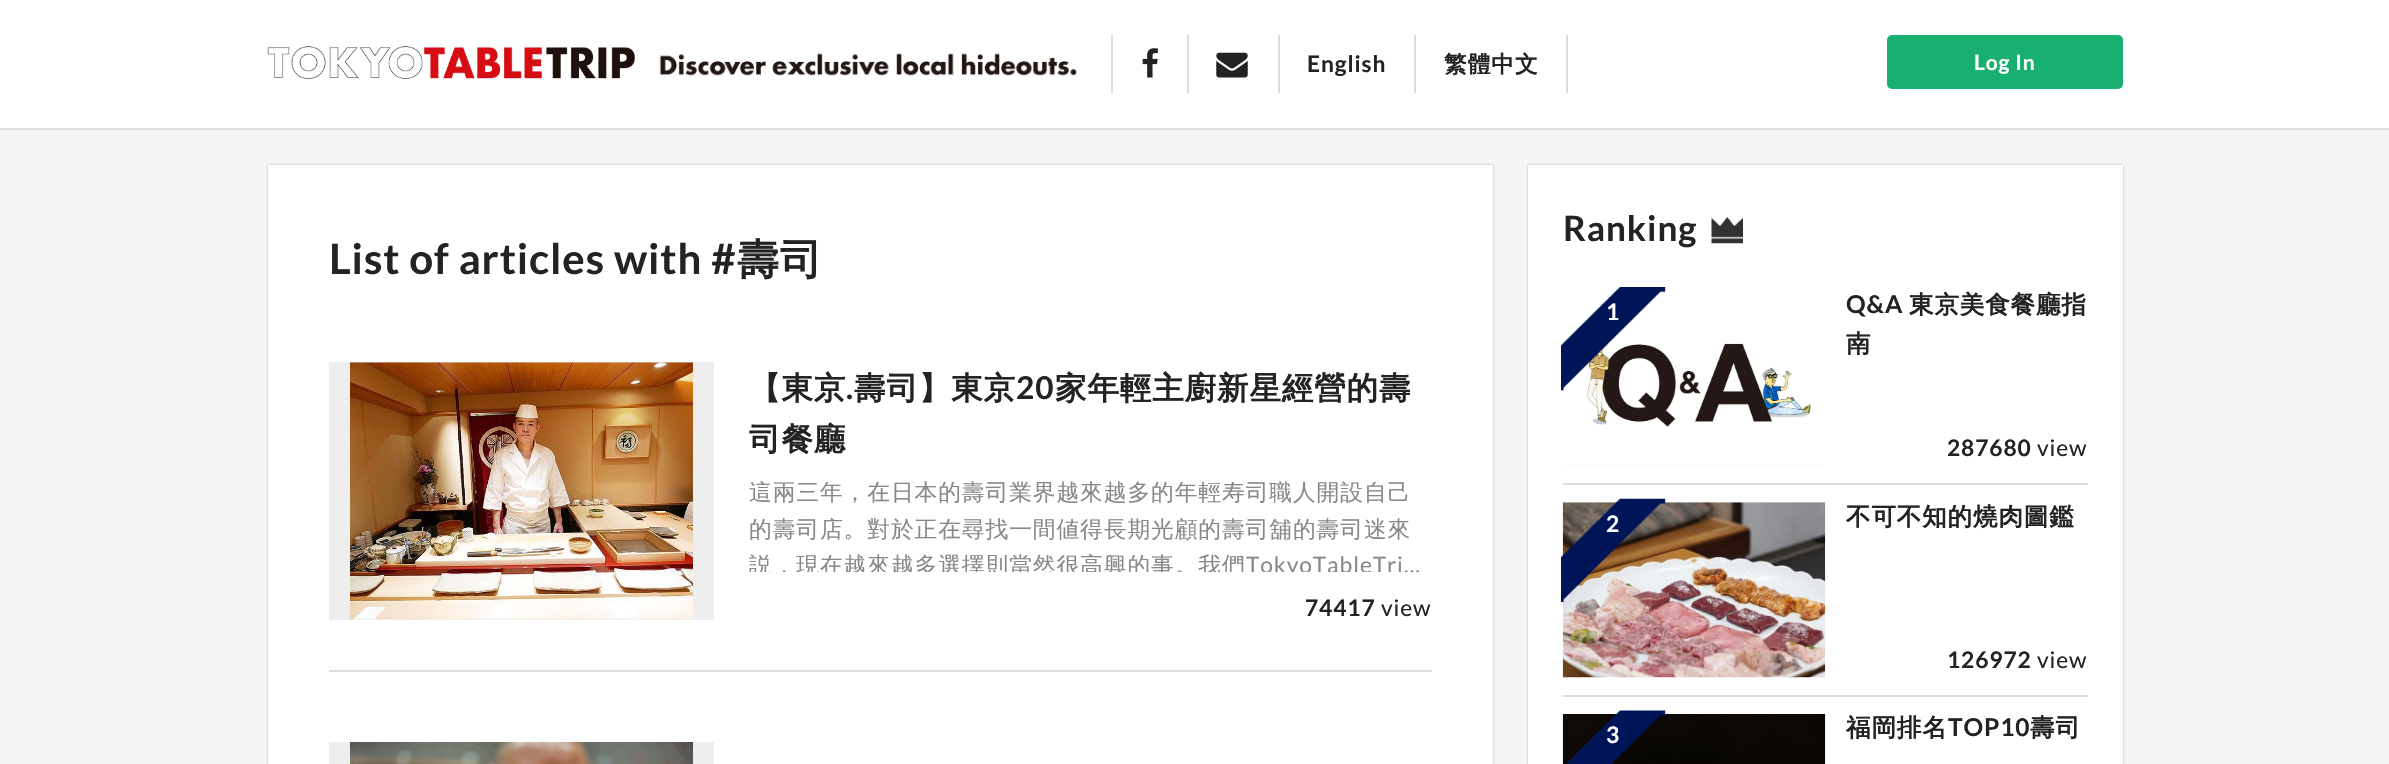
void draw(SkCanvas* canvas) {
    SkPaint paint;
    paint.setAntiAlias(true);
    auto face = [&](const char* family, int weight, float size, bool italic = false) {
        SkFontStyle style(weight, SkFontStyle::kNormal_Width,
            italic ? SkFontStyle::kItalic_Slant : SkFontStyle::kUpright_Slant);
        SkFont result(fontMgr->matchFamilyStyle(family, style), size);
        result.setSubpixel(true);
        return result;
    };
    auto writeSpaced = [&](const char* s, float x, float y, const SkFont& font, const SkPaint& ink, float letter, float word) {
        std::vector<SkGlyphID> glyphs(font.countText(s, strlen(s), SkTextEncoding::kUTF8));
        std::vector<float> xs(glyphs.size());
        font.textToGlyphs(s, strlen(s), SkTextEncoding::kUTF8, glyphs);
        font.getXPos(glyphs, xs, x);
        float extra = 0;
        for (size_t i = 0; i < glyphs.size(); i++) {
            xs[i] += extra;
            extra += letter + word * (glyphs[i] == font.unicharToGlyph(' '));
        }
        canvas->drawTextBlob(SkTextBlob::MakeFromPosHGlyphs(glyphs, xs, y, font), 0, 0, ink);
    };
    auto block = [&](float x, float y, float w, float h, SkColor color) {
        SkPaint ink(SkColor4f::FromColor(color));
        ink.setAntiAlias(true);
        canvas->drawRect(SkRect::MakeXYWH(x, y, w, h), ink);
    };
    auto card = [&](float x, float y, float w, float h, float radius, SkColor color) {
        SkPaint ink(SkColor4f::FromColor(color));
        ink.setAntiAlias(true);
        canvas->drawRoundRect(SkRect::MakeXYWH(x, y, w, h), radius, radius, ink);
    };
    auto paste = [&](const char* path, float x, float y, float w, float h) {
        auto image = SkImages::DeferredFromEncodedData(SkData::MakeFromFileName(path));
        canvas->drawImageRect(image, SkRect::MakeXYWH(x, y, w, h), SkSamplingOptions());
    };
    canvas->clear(SK_ColorWHITE);
    block(0, 128, 2389, 2, SkColorSetRGB(221, 221, 221));
    paste("pic1.png", 267, 46, 369, 33);
    paste("pic2.png", 659, 53, 418, 23);
    block(1111, 35, 2, 58, SkColorSetRGB(221, 221, 221));
    paste("pic3.png", 1142, 48, 16, 30);
    block(1187, 35, 2, 58, SkColorSetRGB(221, 221, 221));
    paste("pic4.png", 1216, 52, 32, 26);
    block(1278, 35, 2, 58, SkColorSetRGB(221, 221, 221));
    auto kFont1 = face("Lato", 700, 22.75f);
    paint.setColor(SkColorSetRGB(35, 35, 35));
    writeSpaced("English", 1307, 72, kFont1, paint, 0.9f, 0);
    block(1566, 35, 2, 58, SkColorSetRGB(221, 221, 221));
    block(1414, 35, 2, 58, SkColorSetRGB(221, 221, 221));
    auto kFont2 = face("WenQuanYi Zen Hei", 700, 22.75f);
    writeSpaced("繁體中文", 1444, 72, kFont2, paint, 0.9f, 0);
    card(1887, 35, 236, 54, 5, SkColorSetRGB(24, 176, 112));
    auto kFont3 = face("Lato", 700, 21);
    paint.setColor(SK_ColorWHITE);
    writeSpaced("Log In", 1974, 70, kFont3, paint, 0.9f, 0);
    block(0, 130, 2389, 634, SkColorSetRGB(245, 245, 245));
    paint.setColor(SkColorSetRGB(170, 170, 170));
    paint.setMaskFilter(SkMaskFilter::MakeBlur(kNormal_SkBlurStyle, 1));
    canvas->drawRect(SkRect::MakeXYWH(268, 165, 1225, 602), paint);
    paint.setMaskFilter(nullptr);
    block(268, 165, 1225, 599, SK_ColorWHITE);
    auto kFont4 = face("Lato", 700, 42);
    paint.setColor(SkColorSetRGB(35, 35, 35));
    writeSpaced("List of articles with #", 329, 274, kFont4, paint, 0.9f, 0);
    auto kFont5 = face("WenQuanYi Zen Hei", 700, 42);
    writeSpaced("壽司", 737, 274, kFont5, paint, 0.9f, 0);
    block(329, 670, 1103, 2, SkColorSetRGB(221, 221, 221));
    block(329, 362, 385, 258, SkColorSetRGB(238, 238, 238));
    paste("pic5.png", 350, 362, 343, 258);
    auto kFont6 = face("WenQuanYi Zen Hei", 700, 31.5f);
    writeSpaced("【東京", 749, 399, kFont6, paint, 0.9f, 0);
    auto kFont7 = face("Lato", 700, 31.5f);
    writeSpaced(".", 846, 399, kFont7, paint, 0.9f, 0);
    writeSpaced("壽司】東京", 854, 399, kFont6, paint, 0.9f, 0);
    writeSpaced("20", 1016, 399, kFont7, paint, 0.9f, 0);
    writeSpaced("家年輕主廚新星經營的壽", 1055, 399, kFont6, paint, 0.9f, 0);
    writeSpaced("司餐廳", 749, 450, kFont6, paint, 0.9f, 0);
    auto kFont8 = face("WenQuanYi Zen Hei", 500, 22.75f);
    paint.setColor(SkColorSetRGB(136, 136, 136));
    writeSpaced("這兩三年，在日本的壽司業界越來越多的年輕寿司職人開設自己", 749, 500, kFont8, paint, 0.9f, 0);
    writeSpaced("的壽司店。對於正在尋找一間値得長期光顧的壽司舖的壽司迷來", 749, 537, kFont8, paint, 0.9f, 0);
    canvas->save();
    canvas->clipRect(SkRect::MakeXYWH(749, 474, 683, 98));
    writeSpaced("説，現在越來越多選擇則當然很高興的事。我們", 749, 573, kFont8, paint, 0.9f, 0);
    auto kFont9 = face("Lato", 400, 22.75f);
    writeSpaced("TokyoTableTri...", 1246, 573, kFont9, paint, 0.9f, 0);
    canvas->restore();
    paint.setColor(SkColorSetRGB(35, 35, 35));
    writeSpaced("74417", 1305, 616, kFont1, paint, 0.9f, 0);
    writeSpaced("view", 1381, 616, kFont9, paint, 0.9f, 0);
    block(329, 742, 385, 22, SkColorSetRGB(238, 238, 238));
    paste("pic6.png", 350, 742, 343, 22);
    paint.setColor(SkColorSetRGB(170, 170, 170));
    paint.setMaskFilter(SkMaskFilter::MakeBlur(kNormal_SkBlurStyle, 1));
    canvas->drawRect(SkRect::MakeXYWH(1528, 165, 595, 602), paint);
    paint.setMaskFilter(nullptr);
    block(1528, 165, 595, 599, SK_ColorWHITE);
    auto kFont10 = face("Lato", 700, 35);
    paint.setColor(SkColorSetRGB(35, 35, 35));
    writeSpaced("Ranking", 1563, 241, kFont10, paint, 0.9f, 0);
    paste("pic7.png", 1711, 217, 32, 27);
    block(1563, 483, 525, 2, SkColorSetRGB(221, 221, 221));
    block(1563, 465, 262, 1, SkColorSetRGB(238, 238, 238));
    paste("pic8.png", 1563, 291, 262, 175);
    auto kFont11 = face("Lato", 700, 24.5f);
    writeSpaced("Q&A", 1846, 313, kFont11, paint, 0.9f, 0);
    auto kFont12 = face("WenQuanYi Zen Hei", 700, 24.5f);
    writeSpaced("東京美食餐廳指", 1909, 313, kFont12, paint, 0.9f, 0);
    writeSpaced("南", 1846, 352, kFont12, paint, 0.9f, 0);
    writeSpaced("287680", 1947, 456, kFont1, paint, 0.9f, 0);
    writeSpaced("view", 2037, 456, kFont9, paint, 0.9f, 0);
    paste("pic9.png", 1561, 287, 105, 104);
    paint.setColor(SK_ColorWHITE);
    writeSpaced("1", 1606, 320, kFont1, paint, 0.9f, 0);
    block(1563, 695, 525, 2, SkColorSetRGB(221, 221, 221));
    block(1563, 502, 262, 1, SkColorSetRGB(238, 238, 238));
    paste("pic10.png", 1562, 502, 264, 176);
    paint.setColor(SkColorSetRGB(35, 35, 35));
    writeSpaced("不可不知的燒肉圖鑑", 1846, 525, kFont12, paint, 0.9f, 0);
    writeSpaced("126972", 1947, 668, kFont1, paint, 0.9f, 0);
    writeSpaced("view", 2037, 668, kFont9, paint, 0.9f, 0);
    paste("pic11.png", 1561, 498, 105, 104);
    paint.setColor(SK_ColorWHITE);
    writeSpaced("2", 1606, 532, kFont1, paint, 0.9f, 0);
    paste("pic12.png", 1562, 714, 264, 50);
    paint.setColor(SkColorSetRGB(35, 35, 35));
    writeSpaced("福岡排名", 1846, 736, kFont12, paint, 0.9f, 0);
    writeSpaced("TOP10", 1948, 736, kFont11, paint, 0.9f, 0);
    writeSpaced("壽司", 2030, 736, kFont12, paint, 0.9f, 0);
    paste("pic13.png", 1566, 710, 100, 54);
    paint.setColor(SK_ColorWHITE);
    writeSpaced("3", 1606, 743, kFont1, paint, 0.9f, 0);
}
